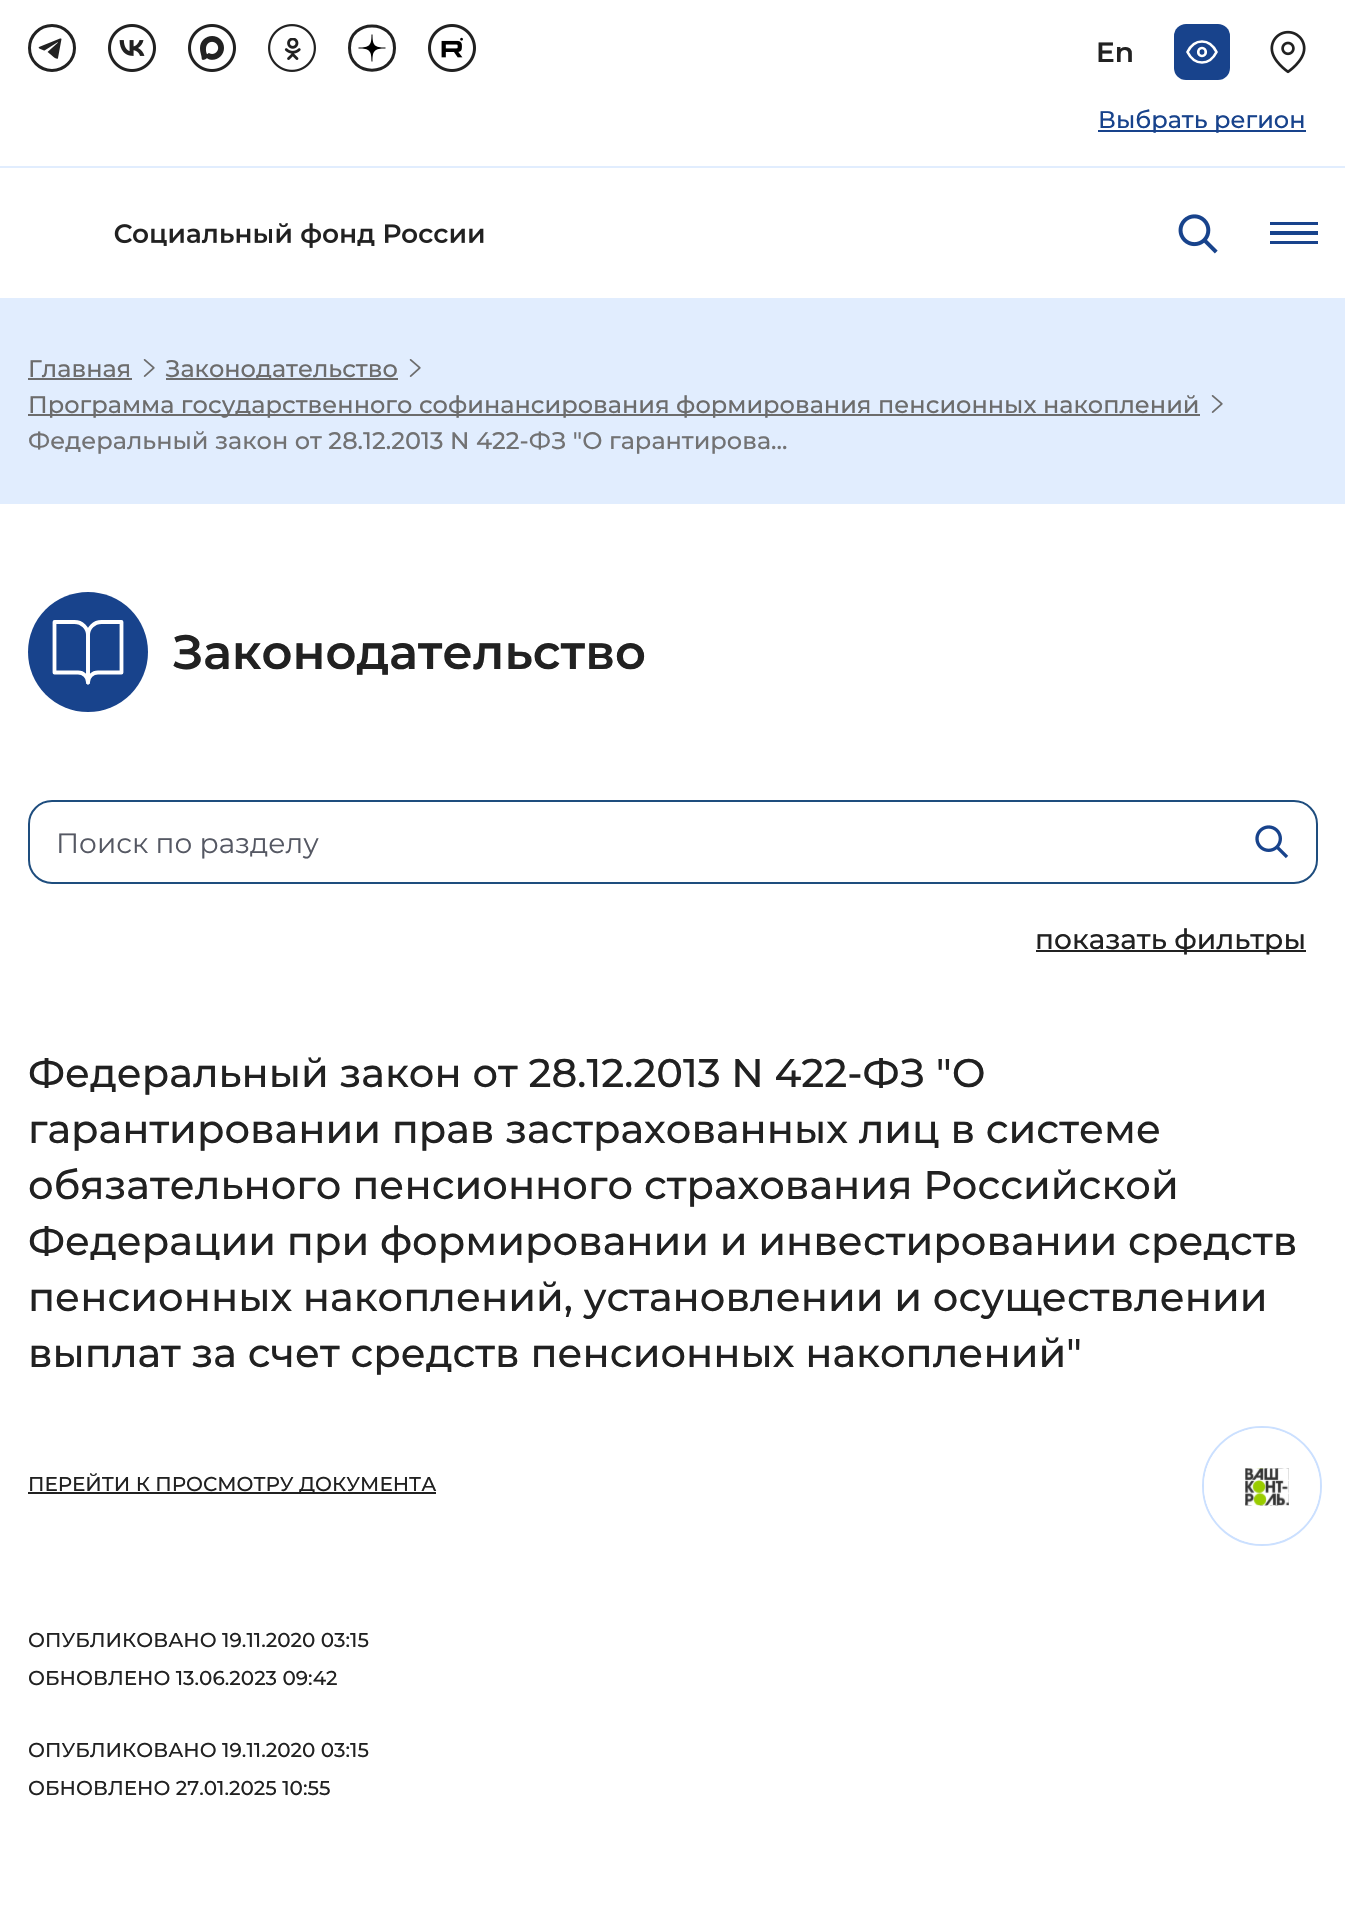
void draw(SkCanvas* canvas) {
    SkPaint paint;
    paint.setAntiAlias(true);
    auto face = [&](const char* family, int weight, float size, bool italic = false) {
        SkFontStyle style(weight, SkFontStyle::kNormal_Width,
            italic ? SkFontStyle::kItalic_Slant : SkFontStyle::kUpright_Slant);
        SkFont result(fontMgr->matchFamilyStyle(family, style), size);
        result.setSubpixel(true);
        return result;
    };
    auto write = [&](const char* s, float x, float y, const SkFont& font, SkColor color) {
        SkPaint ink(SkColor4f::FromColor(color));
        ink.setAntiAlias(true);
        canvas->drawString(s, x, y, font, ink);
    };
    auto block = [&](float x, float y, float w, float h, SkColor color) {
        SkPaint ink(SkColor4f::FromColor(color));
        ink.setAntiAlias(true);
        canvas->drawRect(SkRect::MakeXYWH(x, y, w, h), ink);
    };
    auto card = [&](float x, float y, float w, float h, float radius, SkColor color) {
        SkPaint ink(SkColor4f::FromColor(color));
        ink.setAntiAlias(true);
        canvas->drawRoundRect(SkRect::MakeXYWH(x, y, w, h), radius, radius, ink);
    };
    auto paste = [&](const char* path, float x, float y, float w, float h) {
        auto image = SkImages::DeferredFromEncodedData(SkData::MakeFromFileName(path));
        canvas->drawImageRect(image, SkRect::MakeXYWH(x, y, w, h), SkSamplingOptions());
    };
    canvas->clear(SK_ColorWHITE);
    block(0, 166, 1345, 2, SkColorSetRGB(225, 237, 254));
    paint.setStyle(SkPaint::kStroke_Style);
    paint.setStrokeWidth(3);
    paint.setColor(SkColorSetRGB(33, 33, 33));
    canvas->drawCircle(52, 48, 22.5f, paint);
    paint.setStyle(SkPaint::kFill_Style);
    canvas->drawPath(SkPathBuilder().moveTo(61.5f, 39).lineTo(58, 58).cubicTo(57.5f, 61.5f, 49.5f, 53, 47.5f, 52).lineTo(57.5f, 43).lineTo(58, 42).lineTo(44.5f, 50.5f).cubicTo(44.5f, 50.5f, 37, 48.5f, 39, 47).lineTo(60, 38.5f).cubicTo(60.5f, 38.5f, 61.5f, 38, 61.5f, 39).close().detach(), paint);
    paste("pic1.png", 108, 24, 48, 48);
    paste("pic2.png", 188, 24, 48, 48);
    paste("pic3.png", 268, 24, 48, 48);
    paint.setStyle(SkPaint::kStroke_Style);
    canvas->drawPath(SkPathBuilder().moveTo(349.5f, 48).cubicTo(349.5f, 18.5f, 394.5f, 18.5f, 394.5f, 48).cubicTo(394.5f, 77.5f, 349.5f, 77.5f, 349.5f, 48).close().detach(), paint);
    paint.setStyle(SkPaint::kFill_Style);
    paint.setColor(SK_ColorBLACK);
    canvas->drawPath(SkPathBuilder(SkPathFillType::kEvenOdd).moveTo(371.5f, 34.5f).cubicTo(371.5f, 45.5f, 369.5f, 47.5f, 358.5f, 47.5f).lineTo(358.5f, 48.5f).cubicTo(369.5f, 48.5f, 371.5f, 50.5f, 371.5f, 61.5f).lineTo(372.5f, 61.5f).cubicTo(372.5f, 50.5f, 374.5f, 48.5f, 385.5f, 48.5f).lineTo(385.5f, 47.5f).cubicTo(374.5f, 47.5f, 372.5f, 45.5f, 372.5f, 34.5f).close().detach(), paint);
    paste("pic4.png", 428, 24, 48, 48);
    auto kFont1 = face("Montserrat", 600, 28);
    write("En", 1096, 62, kFont1, SkColorSetRGB(33, 33, 33));
    card(1174, 24, 56, 56, 12, SkColorSetRGB(24, 67, 140));
    paint.setStyle(SkPaint::kStroke_Style);
    paint.setStrokeWidth(2.7f);
    paint.setStrokeCap(SkPaint::kRound_Cap);
    paint.setStrokeJoin(SkPaint::kRound_Join);
    paint.setColor(SK_ColorWHITE);
    canvas->drawPath(SkPathBuilder().moveTo(1187.5f, 52).cubicTo(1194.5f, 38, 1209.5f, 38, 1216.5f, 52).cubicTo(1209.5f, 66, 1194.5f, 66, 1187.5f, 52).close().moveTo(1202, 56).cubicTo(1207, 56, 1207, 48, 1202, 48).cubicTo(1197, 48, 1197, 56, 1202, 56).close().detach(), paint);
    paste("pic5.png", 1270, 30, 36, 44);
    block(1098, 130, 208, 2, SkColorSetRGB(24, 67, 140));
    auto kFont2 = face("Montserrat", 500, 24);
    write("Выбрать регион", 1098, 128, kFont2, SkColorSetRGB(24, 67, 140));
    paste("pic6.png", 114, 223, 370, 25);
    paste("pic7.png", 1178, 214, 40, 40);
    paint.setStyle(SkPaint::kFill_Style);
    paint.setColor(SkColorSetRGB(24, 67, 140));
    canvas->drawPath(SkPathBuilder(SkPathFillType::kEvenOdd).moveTo(1318, 225).lineTo(1318, 222).lineTo(1270, 222).lineTo(1270, 225).close().moveTo(1318, 231).lineTo(1318, 235).lineTo(1270, 235).lineTo(1270, 231).close().moveTo(1318, 241).lineTo(1318, 244).lineTo(1270, 244).lineTo(1270, 241).close().detach(), paint);
    block(0, 298, 1345, 206, SkColorSetRGB(225, 237, 254));
    write("Главная", 28, 377, kFont2, SkColorSetRGB(108, 108, 108));
    block(28, 378, 104, 2, SkColorSetRGB(108, 108, 108));
    paste("pic8.png", 143, 359, 12, 18);
    block(166, 378, 232, 2, SkColorSetRGB(108, 108, 108));
    write("Законодательство", 165, 377, kFont2, SkColorSetRGB(108, 108, 108));
    paste("pic8.png", 409, 359, 12, 18);
    block(28, 414, 1172, 2, SkColorSetRGB(108, 108, 108));
    write("Программа государственного софинансирования формирования пенсионных накоплений", 28, 413, kFont2, SkColorSetRGB(108, 108, 108));
    paste("pic8.png", 1211, 395, 12, 18);
    write("Федеральный закон от 28.12.2013 N 422-ФЗ \"О гарантирова...", 28, 449, kFont2, SkColorSetRGB(114, 114, 115));
    canvas->drawCircle(88, 652, 60, paint);
    paint.setStyle(SkPaint::kStroke_Style);
    paint.setStrokeWidth(3.8f);
    paint.setColor(SK_ColorWHITE);
    canvas->drawPath(SkPathBuilder().moveTo(54.5f, 622).lineTo(74.5f, 622).cubicTo(82, 622, 88, 628, 88, 635.5f).lineTo(88, 682.5f).cubicTo(88, 677, 83.5f, 672.5f, 78, 672.5f).lineTo(54.5f, 672.5f).close().detach(), paint);
    canvas->drawPath(SkPathBuilder().moveTo(121.5f, 622).lineTo(101.5f, 622).cubicTo(94, 622, 88, 628, 88, 635.5f).lineTo(88, 682.5f).cubicTo(88, 677, 92.5f, 672.5f, 98, 672.5f).lineTo(121.5f, 672.5f).close().detach(), paint);
    auto kFont3 = face("Montserrat", 600, 48);
    write("Законодательство", 172, 669, kFont3, SkColorSetRGB(33, 33, 33));
    paint.setStrokeWidth(2);
    paint.setStrokeCap(SkPaint::kButt_Cap);
    paint.setStrokeJoin(SkPaint::kMiter_Join);
    paint.setColor(SkColorSetRGB(30, 77, 126));
    canvas->drawRoundRect(SkRect::MakeXYWH(29, 801, 1288, 82), 23, 23, paint);
    auto kFont4 = face("Montserrat", 400, 28);
    write("Поиск по разделу", 56, 853, kFont4, SkColorSetRGB(85, 88, 99));
    paste("pic9.png", 1255, 825, 34, 34);
    block(1036, 950, 270, 2, SkColorSetRGB(33, 33, 33));
    auto kFont5 = face("Montserrat", 500, 28);
    write("показать фильтры", 1035, 949, kFont5, SkColorSetRGB(33, 33, 33));
    auto kFont6 = face("Montserrat", 500, 40);
    write("Федеральный закон от 28.12.2013 N 422-ФЗ \"О", 28, 1087, kFont6, SkColorSetRGB(33, 33, 33));
    write("гарантировании прав застрахованных лиц в системе", 28, 1143, kFont6, SkColorSetRGB(33, 33, 33));
    write("обязательного пенсионного страхования Российской", 28, 1199, kFont6, SkColorSetRGB(33, 33, 33));
    write("Федерации при формировании и инвестировании средств", 28, 1255, kFont6, SkColorSetRGB(33, 33, 33));
    write("пенсионных накоплений, установлении и осуществлении", 28, 1311, kFont6, SkColorSetRGB(33, 33, 33));
    write("выплат за счет средств пенсионных накоплений\"", 28, 1367, kFont6, SkColorSetRGB(33, 33, 33));
    block(28, 1492, 408, 2, SkColorSetRGB(33, 33, 33));
    auto kFont7 = face("Montserrat", 500, 20);
    write("ПЕРЕЙТИ К ПРОСМОТРУ ДОКУМЕНТА", 28, 1491, kFont7, SkColorSetRGB(33, 33, 33));
    write("ОПУБЛИКОВАНО 19.11.2020 03:15", 28, 1647, kFont7, SkColorSetRGB(33, 33, 33));
    write("ОБНОВЛЕНО 13.06.2023 09:42", 28, 1685, kFont7, SkColorSetRGB(33, 33, 33));
    write("ОПУБЛИКОВАНО 19.11.2020 03:15", 28, 1757, kFont7, SkColorSetRGB(33, 33, 33));
    write("ОБНОВЛЕНО 27.01.2025 10:55", 28, 1795, kFont7, SkColorSetRGB(33, 33, 33));
    paint.setColor(SkColorSetRGB(203, 224, 255));
    canvas->drawCircle(1262, 1486, 59, paint);
    paint.setStyle(SkPaint::kFill_Style);
    paint.setColor(SK_ColorWHITE);
    canvas->drawCircle(1262, 1486, 58, paint);
    canvas->save();
    canvas->clipPath(SkPathBuilder().moveTo(1262, 1428).cubicTo(1294, 1428, 1320, 1454, 1320, 1486).cubicTo(1320, 1518, 1294, 1544, 1262, 1544).cubicTo(1230, 1544, 1204, 1518, 1204, 1486).cubicTo(1204, 1454, 1230, 1428, 1262, 1428).close().detach(), true);
    {
        const SkColor colors[] = {SkColorSetARGB(135, 255, 255, 255), SkColorSetARGB(0, 255, 255, 255)};
        const float stops[] = {0, 1};
        const SkPoint ends[] = {{1212, 1486}, {1168, 1486}};
        paint.setShader(SkGradientShader::MakeLinear(ends, colors, stops, 2, SkTileMode::kClamp));
        paint.setAlpha(255);
    }
    canvas->drawRect(SkRect::MakeXYWH(1204, 1457, 8, 58), paint);
    canvas->restore();
    paste("pic10.png", 1245, 1468, 44, 38);
}
